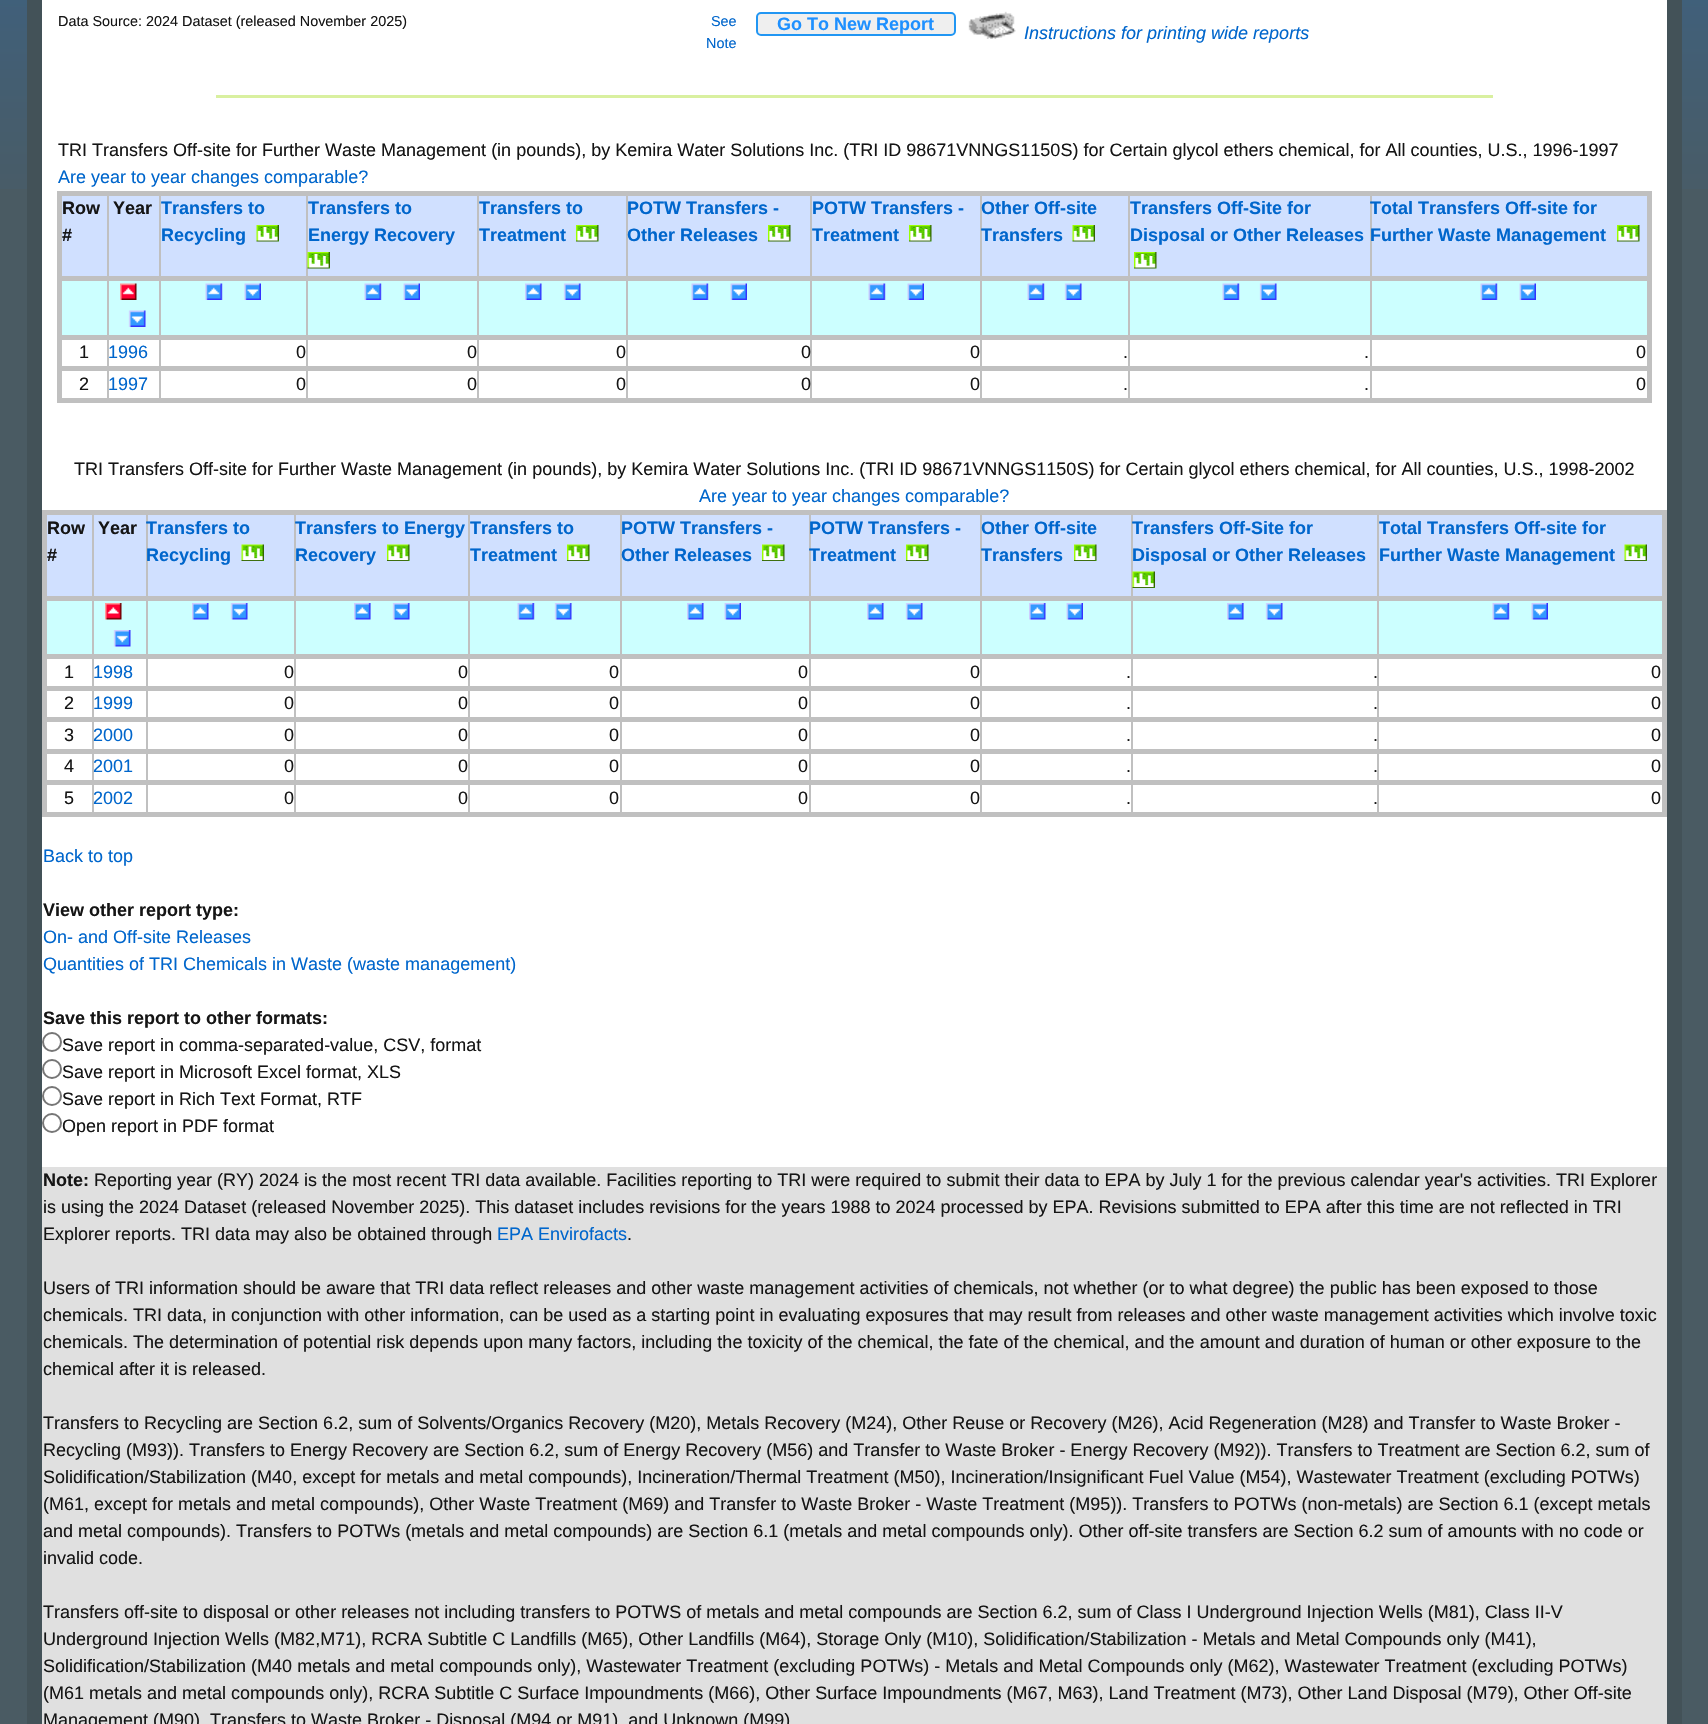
void draw(SkCanvas* canvas) {
    SkPaint paint;
    paint.setAntiAlias(true);
    auto face = [&](const char* family, int weight, float size, bool italic = false) {
        SkFontStyle style(weight, SkFontStyle::kNormal_Width,
            italic ? SkFontStyle::kItalic_Slant : SkFontStyle::kUpright_Slant);
        SkFont result(fontMgr->matchFamilyStyle(family, style), size);
        result.setSubpixel(true);
        return result;
    };
    auto write = [&](const char* s, float x, float y, const SkFont& font, SkColor color) {
        SkPaint ink(SkColor4f::FromColor(color));
        ink.setAntiAlias(true);
        canvas->drawString(s, x, y, font, ink);
    };
    auto block = [&](float x, float y, float w, float h, SkColor color) {
        SkPaint ink(SkColor4f::FromColor(color));
        ink.setAntiAlias(true);
        canvas->drawRect(SkRect::MakeXYWH(x, y, w, h), ink);
    };
    auto paste = [&](const char* path, float x, float y, float w, float h) {
        auto image = SkImages::DeferredFromEncodedData(SkData::MakeFromFileName(path));
        canvas->drawImageRect(image, SkRect::MakeXYWH(x, y, w, h), SkSamplingOptions());
    };
    canvas->clear(SkColorSetRGB(74, 91, 99));
    paste("pic1.png", 0, 0, 1708, 189);
    block(42, 0, 1625, 1167, SK_ColorWHITE);
    paint.setStyle(SkPaint::kStroke_Style);
    paint.setStrokeWidth(15);
    paint.setColor(SkColorSetRGB(67, 82, 88));
    canvas->drawRect(SkRect::MakeXYWH(34.5f, -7.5f, 1640, 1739), paint);
    auto kFont1 = face("Liberation Sans", 400, 14.4f);
    write("Data Source: 2024 Dataset (released November 2025)", 58, 26, kFont1, SkColorSetRGB(21, 21, 21));
    write("See", 711, 26, kFont1, SkColorSetRGB(0, 102, 204));
    write("Note", 706, 48, kFont1, SkColorSetRGB(0, 102, 204));
    paint.setStyle(SkPaint::kFill_Style);
    paint.setColor(SkColorSetRGB(239, 239, 239));
    canvas->drawRoundRect(SkRect::MakeXYWH(757, 13, 198, 22), 4, 4, paint);
    paint.setStyle(SkPaint::kStroke_Style);
    paint.setStrokeWidth(2);
    paint.setColor(SkColorSetRGB(33, 150, 243));
    canvas->drawRoundRect(SkRect::MakeXYWH(757, 13, 198, 22), 4, 4, paint);
    auto kFont2 = face("Liberation Sans", 700, 18);
    write("Go To New Report", 777, 30, kFont2, SkColorSetRGB(30, 144, 255));
    paste("pic2.png", 968, 11, 48, 28);
    auto kFont3 = face("Liberation Sans", 400, 18, true);
    write("Instructions for printing wide reports", 1024, 39, kFont3, SkColorSetRGB(0, 102, 204));
    block(216, 95, 1277, 3, SkColorSetRGB(217, 240, 160));
    auto kFont4 = face("Liberation Sans", 400, 18);
    write("TRI Transfers Off-site for Further Waste Management (in pounds), by Kemira Water Solutions Inc. (TRI ID 98671VNNGS1150S) for Certain glycol ethers chemical, for All counties, U.S., 1996-1997", 58, 156, kFont4, SkColorSetRGB(21, 21, 21));
    write("Are year to year changes comparable?", 58, 183, kFont4, SkColorSetRGB(0, 102, 204));
    block(62, 196, 1585, 80, SkColorSetRGB(208, 224, 255));
    block(62, 281, 1585, 54, SkColorSetRGB(204, 255, 255));
    block(107, 192, 2, 209, SkColorSetRGB(192, 192, 192));
    block(159, 192, 2, 209, SkColorSetRGB(192, 192, 192));
    block(306, 192, 2, 209, SkColorSetRGB(192, 192, 192));
    block(477, 192, 2, 209, SkColorSetRGB(192, 192, 192));
    block(626, 192, 2, 209, SkColorSetRGB(192, 192, 192));
    block(810, 192, 2, 209, SkColorSetRGB(192, 192, 192));
    block(980, 192, 2, 209, SkColorSetRGB(192, 192, 192));
    block(1128, 192, 2, 209, SkColorSetRGB(192, 192, 192));
    block(1370, 192, 2, 209, SkColorSetRGB(192, 192, 192));
    block(57, 191, 1595, 5, SkColorSetRGB(192, 192, 192));
    block(57, 276, 1595, 5, SkColorSetRGB(192, 192, 192));
    block(57, 335, 1595, 5, SkColorSetRGB(192, 192, 192));
    block(57, 366, 1595, 5, SkColorSetRGB(192, 192, 192));
    block(1647, 366, 5, 36, SkColorSetRGB(192, 192, 192));
    block(1647, 335, 5, 36, SkColorSetRGB(192, 192, 192));
    block(1647, 276, 5, 63, SkColorSetRGB(192, 192, 192));
    block(1647, 191, 5, 90, SkColorSetRGB(192, 192, 192));
    block(57, 398, 1595, 5, SkColorSetRGB(192, 192, 192));
    block(57, 366, 5, 36, SkColorSetRGB(192, 192, 192));
    block(57, 335, 5, 36, SkColorSetRGB(192, 192, 192));
    block(57, 276, 5, 63, SkColorSetRGB(192, 192, 192));
    block(57, 191, 5, 90, SkColorSetRGB(192, 192, 192));
    write("Row", 62, 214, kFont2, SkColorSetRGB(21, 21, 21));
    write("#", 62, 241, kFont2, SkColorSetRGB(21, 21, 21));
    write("Year", 113, 214, kFont2, SkColorSetRGB(21, 21, 21));
    write("Transfers to", 161, 214, kFont2, SkColorSetRGB(0, 102, 204));
    write("Recycling", 161, 241, kFont2, SkColorSetRGB(0, 102, 204));
    paste("pic3.png", 256, 225, 23, 17);
    write("Transfers to", 308, 214, kFont2, SkColorSetRGB(0, 102, 204));
    write("Energy Recovery", 308, 241, kFont2, SkColorSetRGB(0, 102, 204));
    paste("pic4.png", 307, 252, 23, 17);
    write("Transfers to", 479, 214, kFont2, SkColorSetRGB(0, 102, 204));
    write("Treatment", 479, 241, kFont2, SkColorSetRGB(0, 102, 204));
    paste("pic5.png", 576, 225, 23, 17);
    write("POTW Transfers -", 627, 214, kFont2, SkColorSetRGB(0, 102, 204));
    write("Other Releases", 627, 241, kFont2, SkColorSetRGB(0, 102, 204));
    paste("pic5.png", 768, 225, 23, 17);
    write("POTW Transfers -", 812, 214, kFont2, SkColorSetRGB(0, 102, 204));
    write("Treatment", 812, 241, kFont2, SkColorSetRGB(0, 102, 204));
    paste("pic5.png", 909, 225, 23, 17);
    write("Other Off-site", 981, 214, kFont2, SkColorSetRGB(0, 102, 204));
    write("Transfers", 981, 241, kFont2, SkColorSetRGB(0, 102, 204));
    paste("pic3.png", 1072, 225, 23, 17);
    write("Transfers Off-Site for", 1130, 214, kFont2, SkColorSetRGB(0, 102, 204));
    write("Disposal or Other Releases", 1130, 241, kFont2, SkColorSetRGB(0, 102, 204));
    paste("pic5.png", 1134, 252, 23, 17);
    write("Total Transfers Off-site for", 1370, 214, kFont2, SkColorSetRGB(0, 102, 204));
    write("Further Waste Management", 1370, 241, kFont2, SkColorSetRGB(0, 102, 204));
    paste("pic5.png", 1617, 225, 23, 17);
    paste("pic6.png", 120, 283, 17, 17);
    paste("pic7.png", 128, 310, 18, 17);
    paste("pic8.png", 205, 283, 18, 17);
    paste("pic9.png", 244, 283, 17, 17);
    paste("pic10.png", 364, 283, 18, 17);
    paste("pic11.png", 403, 283, 17, 17);
    paste("pic12.png", 525, 283, 17, 17);
    paste("pic13.png", 563, 283, 18, 17);
    paste("pic10.png", 691, 283, 18, 17);
    paste("pic11.png", 730, 283, 17, 17);
    paste("pic8.png", 868, 283, 18, 17);
    paste("pic9.png", 907, 283, 17, 17);
    paste("pic8.png", 1027, 283, 18, 17);
    paste("pic13.png", 1064, 283, 18, 17);
    paste("pic8.png", 1222, 283, 18, 17);
    paste("pic14.png", 1259, 283, 18, 17);
    paste("pic10.png", 1480, 283, 18, 17);
    paste("pic15.png", 1519, 283, 17, 17);
    write("1", 79, 358, kFont4, SkColorSetRGB(21, 21, 21));
    write("1996", 108, 358, kFont4, SkColorSetRGB(0, 102, 204));
    write("0", 296, 358, kFont4, SkColorSetRGB(21, 21, 21));
    write("0", 467, 358, kFont4, SkColorSetRGB(21, 21, 21));
    write("0", 616, 358, kFont4, SkColorSetRGB(21, 21, 21));
    write("0", 801, 358, kFont4, SkColorSetRGB(21, 21, 21));
    write("0", 970, 358, kFont4, SkColorSetRGB(21, 21, 21));
    write(".", 1123, 358, kFont4, SkColorSetRGB(21, 21, 21));
    write(".", 1364, 358, kFont4, SkColorSetRGB(21, 21, 21));
    write("0", 1636, 358, kFont4, SkColorSetRGB(21, 21, 21));
    write("2", 79, 390, kFont4, SkColorSetRGB(21, 21, 21));
    write("1997", 108, 390, kFont4, SkColorSetRGB(0, 102, 204));
    write("0", 296, 390, kFont4, SkColorSetRGB(21, 21, 21));
    write("0", 467, 390, kFont4, SkColorSetRGB(21, 21, 21));
    write("0", 616, 390, kFont4, SkColorSetRGB(21, 21, 21));
    write("0", 801, 390, kFont4, SkColorSetRGB(21, 21, 21));
    write("0", 970, 390, kFont4, SkColorSetRGB(21, 21, 21));
    write(".", 1123, 390, kFont4, SkColorSetRGB(21, 21, 21));
    write(".", 1364, 390, kFont4, SkColorSetRGB(21, 21, 21));
    write("0", 1636, 390, kFont4, SkColorSetRGB(21, 21, 21));
    write("TRI Transfers Off-site for Further Waste Management (in pounds), by Kemira Water Solutions Inc. (TRI ID 98671VNNGS1150S) for Certain glycol ethers chemical, for All counties, U.S., 1998-2002", 74, 475, kFont4, SkColorSetRGB(21, 21, 21));
    write("Are year to year changes comparable?", 699, 502, kFont4, SkColorSetRGB(0, 102, 204));
    block(47, 515, 1615, 81, SkColorSetRGB(208, 224, 255));
    block(47, 601, 1615, 53, SkColorSetRGB(204, 255, 255));
    block(92, 512, 2, 303, SkColorSetRGB(192, 192, 192));
    block(146, 512, 2, 303, SkColorSetRGB(192, 192, 192));
    block(294, 512, 2, 303, SkColorSetRGB(192, 192, 192));
    block(468, 512, 2, 303, SkColorSetRGB(192, 192, 192));
    block(620, 512, 2, 303, SkColorSetRGB(192, 192, 192));
    block(809, 512, 2, 303, SkColorSetRGB(192, 192, 192));
    block(980, 512, 2, 303, SkColorSetRGB(192, 192, 192));
    block(1131, 512, 2, 303, SkColorSetRGB(192, 192, 192));
    block(1377, 512, 2, 303, SkColorSetRGB(192, 192, 192));
    block(42, 510, 1625, 5, SkColorSetRGB(192, 192, 192));
    block(42, 596, 1625, 5, SkColorSetRGB(192, 192, 192));
    block(42, 654, 1625, 5, SkColorSetRGB(192, 192, 192));
    block(42, 686, 1625, 5, SkColorSetRGB(192, 192, 192));
    block(42, 717, 1625, 5, SkColorSetRGB(192, 192, 192));
    block(42, 749, 1625, 5, SkColorSetRGB(192, 192, 192));
    block(42, 780, 1625, 5, SkColorSetRGB(192, 192, 192));
    block(1662, 780, 5, 36, SkColorSetRGB(192, 192, 192));
    block(1662, 749, 5, 36, SkColorSetRGB(192, 192, 192));
    block(1662, 717, 5, 36, SkColorSetRGB(192, 192, 192));
    block(1662, 686, 5, 36, SkColorSetRGB(192, 192, 192));
    block(1662, 654, 5, 36, SkColorSetRGB(192, 192, 192));
    block(1662, 596, 5, 63, SkColorSetRGB(192, 192, 192));
    block(1662, 510, 5, 90, SkColorSetRGB(192, 192, 192));
    block(42, 812, 1625, 5, SkColorSetRGB(192, 192, 192));
    block(42, 780, 5, 36, SkColorSetRGB(192, 192, 192));
    block(42, 749, 5, 36, SkColorSetRGB(192, 192, 192));
    block(42, 717, 5, 36, SkColorSetRGB(192, 192, 192));
    block(42, 686, 5, 36, SkColorSetRGB(192, 192, 192));
    block(42, 654, 5, 36, SkColorSetRGB(192, 192, 192));
    block(42, 596, 5, 63, SkColorSetRGB(192, 192, 192));
    block(42, 510, 5, 90, SkColorSetRGB(192, 192, 192));
    write("Row", 47, 534, kFont2, SkColorSetRGB(21, 21, 21));
    write("#", 47, 561, kFont2, SkColorSetRGB(21, 21, 21));
    write("Year", 98, 534, kFont2, SkColorSetRGB(21, 21, 21));
    write("Transfers to", 146, 534, kFont2, SkColorSetRGB(0, 102, 204));
    write("Recycling", 146, 561, kFont2, SkColorSetRGB(0, 102, 204));
    paste("pic16.png", 241, 544, 23, 17);
    write("Transfers to Energy", 295, 534, kFont2, SkColorSetRGB(0, 102, 204));
    write("Recovery", 295, 561, kFont2, SkColorSetRGB(0, 102, 204));
    paste("pic17.png", 387, 544, 23, 17);
    write("Transfers to", 470, 534, kFont2, SkColorSetRGB(0, 102, 204));
    write("Treatment", 470, 561, kFont2, SkColorSetRGB(0, 102, 204));
    paste("pic17.png", 567, 544, 23, 17);
    write("POTW Transfers -", 621, 534, kFont2, SkColorSetRGB(0, 102, 204));
    write("Other Releases", 621, 561, kFont2, SkColorSetRGB(0, 102, 204));
    paste("pic17.png", 762, 544, 23, 17);
    write("POTW Transfers -", 809, 534, kFont2, SkColorSetRGB(0, 102, 204));
    write("Treatment", 809, 561, kFont2, SkColorSetRGB(0, 102, 204));
    paste("pic17.png", 906, 544, 23, 17);
    write("Other Off-site", 981, 534, kFont2, SkColorSetRGB(0, 102, 204));
    write("Transfers", 981, 561, kFont2, SkColorSetRGB(0, 102, 204));
    paste("pic17.png", 1074, 544, 23, 17);
    write("Transfers Off-Site for", 1132, 534, kFont2, SkColorSetRGB(0, 102, 204));
    write("Disposal or Other Releases", 1132, 561, kFont2, SkColorSetRGB(0, 102, 204));
    paste("pic18.png", 1132, 571, 23, 17);
    write("Total Transfers Off-site for", 1379, 534, kFont2, SkColorSetRGB(0, 102, 204));
    write("Further Waste Management", 1379, 561, kFont2, SkColorSetRGB(0, 102, 204));
    paste("pic16.png", 1624, 544, 23, 17);
    paste("pic19.png", 105, 603, 17, 17);
    paste("pic20.png", 113, 630, 18, 17);
    paste("pic21.png", 192, 603, 17, 17);
    paste("pic20.png", 230, 603, 18, 17);
    paste("pic22.png", 354, 603, 17, 17);
    paste("pic23.png", 392, 603, 18, 17);
    paste("pic24.png", 517, 603, 18, 17);
    paste("pic20.png", 554, 603, 18, 17);
    paste("pic21.png", 687, 603, 17, 17);
    paste("pic25.png", 724, 603, 17, 17);
    paste("pic21.png", 867, 603, 17, 17);
    paste("pic20.png", 905, 603, 18, 17);
    paste("pic26.png", 1029, 603, 17, 17);
    paste("pic25.png", 1066, 603, 17, 17);
    paste("pic22.png", 1227, 603, 17, 17);
    paste("pic27.png", 1265, 603, 18, 17);
    paste("pic28.png", 1492, 603, 18, 17);
    paste("pic29.png", 1531, 603, 17, 17);
    write("1", 64, 678, kFont4, SkColorSetRGB(21, 21, 21));
    write("1998", 93, 678, kFont4, SkColorSetRGB(0, 102, 204));
    write("0", 284, 678, kFont4, SkColorSetRGB(21, 21, 21));
    write("0", 458, 678, kFont4, SkColorSetRGB(21, 21, 21));
    write("0", 609, 678, kFont4, SkColorSetRGB(21, 21, 21));
    write("0", 798, 678, kFont4, SkColorSetRGB(21, 21, 21));
    write("0", 970, 678, kFont4, SkColorSetRGB(21, 21, 21));
    write(".", 1126, 678, kFont4, SkColorSetRGB(21, 21, 21));
    write(".", 1373, 678, kFont4, SkColorSetRGB(21, 21, 21));
    write("0", 1651, 678, kFont4, SkColorSetRGB(21, 21, 21));
    write("2", 64, 709, kFont4, SkColorSetRGB(21, 21, 21));
    write("1999", 93, 709, kFont4, SkColorSetRGB(0, 102, 204));
    write("0", 284, 709, kFont4, SkColorSetRGB(21, 21, 21));
    write("0", 458, 709, kFont4, SkColorSetRGB(21, 21, 21));
    write("0", 609, 709, kFont4, SkColorSetRGB(21, 21, 21));
    write("0", 798, 709, kFont4, SkColorSetRGB(21, 21, 21));
    write("0", 970, 709, kFont4, SkColorSetRGB(21, 21, 21));
    write(".", 1126, 709, kFont4, SkColorSetRGB(21, 21, 21));
    write(".", 1373, 709, kFont4, SkColorSetRGB(21, 21, 21));
    write("0", 1651, 709, kFont4, SkColorSetRGB(21, 21, 21));
    write("3", 64, 741, kFont4, SkColorSetRGB(21, 21, 21));
    write("2000", 93, 741, kFont4, SkColorSetRGB(0, 102, 204));
    write("0", 284, 741, kFont4, SkColorSetRGB(21, 21, 21));
    write("0", 458, 741, kFont4, SkColorSetRGB(21, 21, 21));
    write("0", 609, 741, kFont4, SkColorSetRGB(21, 21, 21));
    write("0", 798, 741, kFont4, SkColorSetRGB(21, 21, 21));
    write("0", 970, 741, kFont4, SkColorSetRGB(21, 21, 21));
    write(".", 1126, 741, kFont4, SkColorSetRGB(21, 21, 21));
    write(".", 1373, 741, kFont4, SkColorSetRGB(21, 21, 21));
    write("0", 1651, 741, kFont4, SkColorSetRGB(21, 21, 21));
    write("4", 64, 772, kFont4, SkColorSetRGB(21, 21, 21));
    write("2001", 93, 772, kFont4, SkColorSetRGB(0, 102, 204));
    write("0", 284, 772, kFont4, SkColorSetRGB(21, 21, 21));
    write("0", 458, 772, kFont4, SkColorSetRGB(21, 21, 21));
    write("0", 609, 772, kFont4, SkColorSetRGB(21, 21, 21));
    write("0", 798, 772, kFont4, SkColorSetRGB(21, 21, 21));
    write("0", 970, 772, kFont4, SkColorSetRGB(21, 21, 21));
    write(".", 1126, 772, kFont4, SkColorSetRGB(21, 21, 21));
    write(".", 1373, 772, kFont4, SkColorSetRGB(21, 21, 21));
    write("0", 1651, 772, kFont4, SkColorSetRGB(21, 21, 21));
    write("5", 64, 804, kFont4, SkColorSetRGB(21, 21, 21));
    write("2002", 93, 804, kFont4, SkColorSetRGB(0, 102, 204));
    write("0", 284, 804, kFont4, SkColorSetRGB(21, 21, 21));
    write("0", 458, 804, kFont4, SkColorSetRGB(21, 21, 21));
    write("0", 609, 804, kFont4, SkColorSetRGB(21, 21, 21));
    write("0", 798, 804, kFont4, SkColorSetRGB(21, 21, 21));
    write("0", 970, 804, kFont4, SkColorSetRGB(21, 21, 21));
    write(".", 1126, 804, kFont4, SkColorSetRGB(21, 21, 21));
    write(".", 1373, 804, kFont4, SkColorSetRGB(21, 21, 21));
    write("0", 1651, 804, kFont4, SkColorSetRGB(21, 21, 21));
    write("Back to top", 43, 862, kFont4, SkColorSetRGB(0, 102, 204));
    write("View other report type:", 43, 916, kFont2, SkColorSetRGB(21, 21, 21));
    write("On- and Off-site Releases", 43, 943, kFont4, SkColorSetRGB(0, 102, 204));
    write("Quantities of TRI Chemicals in Waste (waste management)", 43, 970, kFont4, SkColorSetRGB(0, 102, 204));
    write("Save this report to other formats:", 43, 1024, kFont2, SkColorSetRGB(21, 21, 21));
    paint.setColor(SkColorSetRGB(118, 118, 118));
    canvas->drawCircle(52, 1042, 9, paint);
    write("Save report in comma-separated-value, CSV, format", 62, 1051, kFont4, SkColorSetRGB(21, 21, 21));
    canvas->drawCircle(52, 1069, 9, paint);
    write("Save report in Microsoft Excel format, XLS", 62, 1078, kFont4, SkColorSetRGB(21, 21, 21));
    canvas->drawCircle(52, 1096, 9, paint);
    write("Save report in Rich Text Format, RTF", 62, 1105, kFont4, SkColorSetRGB(21, 21, 21));
    canvas->drawCircle(52, 1123, 9, paint);
    write("Open report in PDF format", 62, 1132, kFont4, SkColorSetRGB(21, 21, 21));
    block(42, 1167, 1625, 557, SkColorSetRGB(224, 224, 224));
    write("Note:", 43, 1186, kFont2, SkColorSetRGB(21, 21, 21));
    write("Reporting year (RY) 2024 is the most recent TRI data available. Facilities reporting to TRI were required to submit their data to EPA by July 1 for the previous calendar year's activities. TRI Explorer", 94, 1186, kFont4, SkColorSetRGB(21, 21, 21));
    write("is using the 2024 Dataset (released November 2025). This dataset includes revisions for the years 1988 to 2024 processed by EPA. Revisions submitted to EPA after this time are not reflected in TRI", 43, 1213, kFont4, SkColorSetRGB(21, 21, 21));
    write("Explorer reports. TRI data may also be obtained through", 43, 1240, kFont4, SkColorSetRGB(21, 21, 21));
    write("EPA Envirofacts", 497, 1240, kFont4, SkColorSetRGB(0, 102, 204));
    write(".", 627, 1240, kFont4, SkColorSetRGB(21, 21, 21));
    write("Users of TRI information should be aware that TRI data reflect releases and other waste management activities of chemicals, not whether (or to what degree) the public has been exposed to those", 43, 1294, kFont4, SkColorSetRGB(21, 21, 21));
    write("chemicals. TRI data, in conjunction with other information, can be used as a starting point in evaluating exposures that may result from releases and other waste management activities which involve toxic", 43, 1321, kFont4, SkColorSetRGB(21, 21, 21));
    write("chemicals. The determination of potential risk depends upon many factors, including the toxicity of the chemical, the fate of the chemical, and the amount and duration of human or other exposure to the", 43, 1348, kFont4, SkColorSetRGB(21, 21, 21));
    write("chemical after it is released.", 43, 1375, kFont4, SkColorSetRGB(21, 21, 21));
    write("Transfers to Recycling are Section 6.2, sum of Solvents/Organics Recovery (M20), Metals Recovery (M24), Other Reuse or Recovery (M26), Acid Regeneration (M28) and Transfer to Waste Broker -", 43, 1429, kFont4, SkColorSetRGB(21, 21, 21));
    write("Recycling (M93)). Transfers to Energy Recovery are Section 6.2, sum of Energy Recovery (M56) and Transfer to Waste Broker - Energy Recovery (M92)). Transfers to Treatment are Section 6.2, sum of", 43, 1456, kFont4, SkColorSetRGB(21, 21, 21));
    write("Solidification/Stabilization (M40, except for metals and metal compounds), Incineration/Thermal Treatment (M50), Incineration/Insignificant Fuel Value (M54), Wastewater Treatment (excluding POTWs)", 43, 1483, kFont4, SkColorSetRGB(21, 21, 21));
    write("(M61, except for metals and metal compounds), Other Waste Treatment (M69) and Transfer to Waste Broker - Waste Treatment (M95)). Transfers to POTWs (non-metals) are Section 6.1 (except metals", 43, 1510, kFont4, SkColorSetRGB(21, 21, 21));
    write("and metal compounds). Transfers to POTWs (metals and metal compounds) are Section 6.1 (metals and metal compounds only). Other off-site transfers are Section 6.2 sum of amounts with no code or", 43, 1537, kFont4, SkColorSetRGB(21, 21, 21));
    write("invalid code.", 43, 1564, kFont4, SkColorSetRGB(21, 21, 21));
    write("Transfers off-site to disposal or other releases not including transfers to POTWS of metals and metal compounds are Section 6.2, sum of Class I Underground Injection Wells (M81), Class II-V", 43, 1618, kFont4, SkColorSetRGB(21, 21, 21));
    write("Underground Injection Wells (M82,M71), RCRA Subtitle C Landfills (M65), Other Landfills (M64), Storage Only (M10), Solidification/Stabilization - Metals and Metal Compounds only (M41),", 43, 1645, kFont4, SkColorSetRGB(21, 21, 21));
    write("Solidification/Stabilization (M40 metals and metal compounds only), Wastewater Treatment (excluding POTWs) - Metals and Metal Compounds only (M62), Wastewater Treatment (excluding POTWs)", 43, 1672, kFont4, SkColorSetRGB(21, 21, 21));
    write("(M61 metals and metal compounds only), RCRA Subtitle C Surface Impoundments (M66), Other Surface Impoundments (M67, M63), Land Treatment (M73), Other Land Disposal (M79), Other Off-site", 43, 1699, kFont4, SkColorSetRGB(21, 21, 21));
    write("Management (M90), Transfers to Waste Broker - Disposal (M94 or M91), and Unknown (M99)", 43, 1726, kFont4, SkColorSetRGB(21, 21, 21));
}
